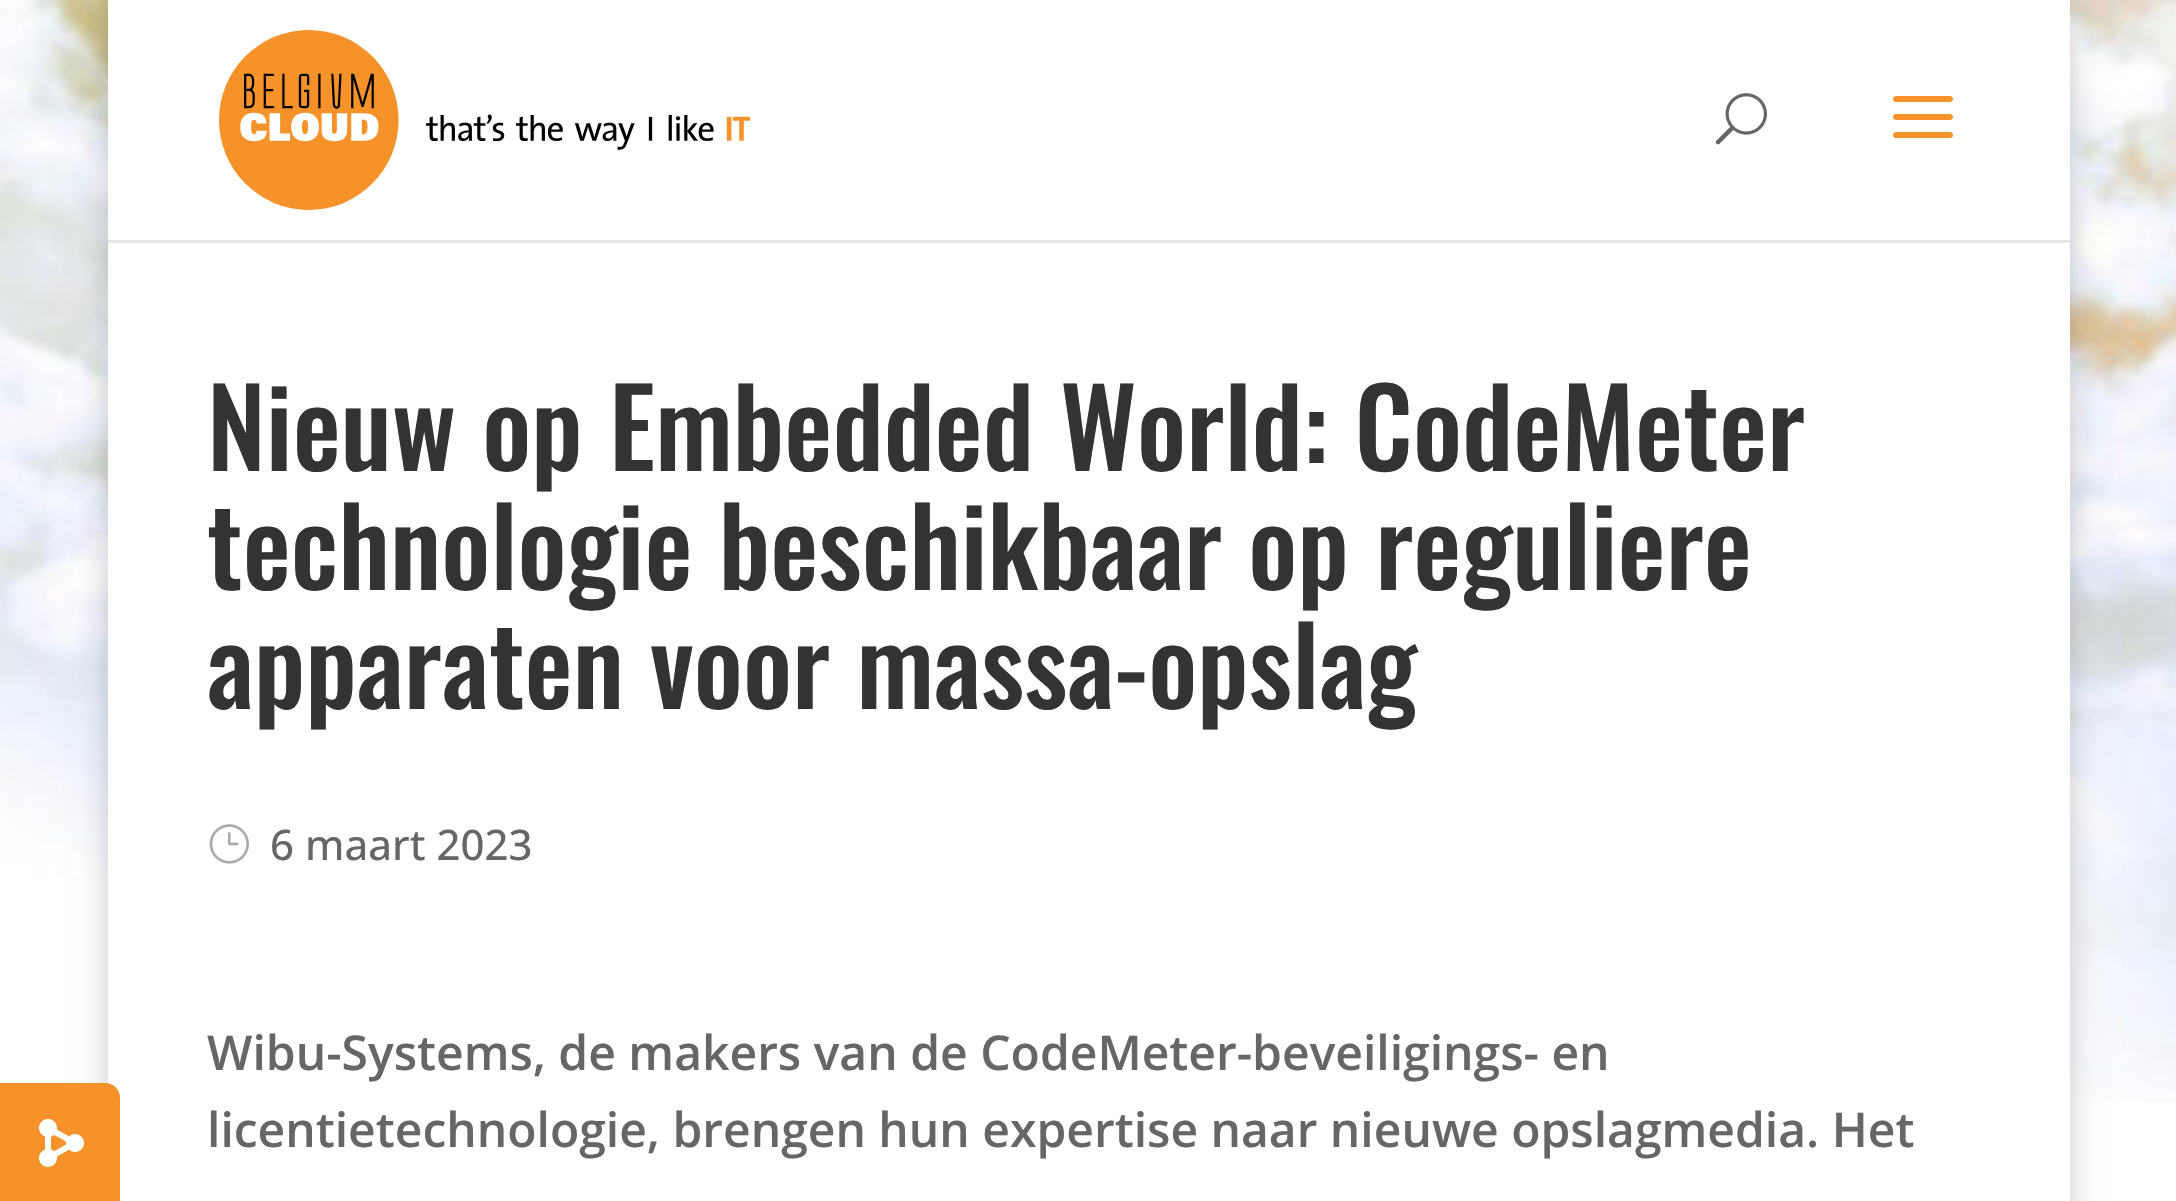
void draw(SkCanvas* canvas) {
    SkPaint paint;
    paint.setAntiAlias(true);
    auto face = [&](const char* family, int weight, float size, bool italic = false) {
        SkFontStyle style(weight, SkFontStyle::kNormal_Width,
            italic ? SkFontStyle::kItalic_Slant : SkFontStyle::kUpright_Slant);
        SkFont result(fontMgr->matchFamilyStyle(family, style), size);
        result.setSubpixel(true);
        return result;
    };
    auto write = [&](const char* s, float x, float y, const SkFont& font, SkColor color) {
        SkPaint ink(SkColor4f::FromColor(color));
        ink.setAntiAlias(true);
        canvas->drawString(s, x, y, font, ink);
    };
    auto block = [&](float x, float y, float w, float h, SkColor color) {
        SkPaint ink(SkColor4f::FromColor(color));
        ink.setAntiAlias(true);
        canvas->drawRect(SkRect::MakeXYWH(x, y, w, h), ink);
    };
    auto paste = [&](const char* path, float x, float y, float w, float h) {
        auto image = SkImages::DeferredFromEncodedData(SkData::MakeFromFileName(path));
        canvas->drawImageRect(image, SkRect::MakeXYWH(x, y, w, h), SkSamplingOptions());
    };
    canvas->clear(SK_ColorWHITE);
    paste("pic1.png", 0, 0, 2176, 1103);
    paint.setColor(SkColorSetARGB(51, 0, 0, 0));
    paint.setMaskFilter(SkMaskFilter::MakeBlur(kNormal_SkBlurStyle, 15));
    canvas->drawRect(SkRect::MakeXYWH(108, 0, 1962, 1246), paint);
    paint.setMaskFilter(nullptr);
    block(108, 243, 1962, 958, SK_ColorWHITE);
    paint.setColor(SkColorSetRGB(245, 146, 42));
    canvas->drawPath(SkPathBuilder().moveTo(0, 1083).lineTo(105, 1083).cubicTo(113.5f, 1083, 120, 1089.5f, 120, 1098).lineTo(120, 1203).lineTo(0, 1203).close().detach(), paint);
    paste("pic2.png", 39, 1119, 45, 48);
    block(108, 240, 1962, 3, SkColorSetRGB(230, 230, 230));
    block(108, 0, 1962, 240, SK_ColorWHITE);
    paste("pic3.png", 219, 30, 531, 180);
    paste("pic4.png", 1715, 93, 52, 52);
    paste("pic5.png", 1893, 96, 60, 42);
    auto kFont1 = face("Oswald", 500, 108);
    write("Nieuw op Embedded World: CodeMeter", 207, 471, kFont1, SkColorSetRGB(51, 51, 51));
    write("technologie beschikbaar op reguliere", 207, 590, kFont1, SkColorSetRGB(51, 51, 51));
    write("apparaten voor massa-opslag", 207, 709, kFont1, SkColorSetRGB(51, 51, 51));
    paste("pic6.png", 209, 824, 40, 40);
    auto kFont2 = face("Open Sans", 500, 42);
    write("6 maart 2023", 270, 860, kFont2, SkColorSetRGB(102, 102, 102));
    auto kFont3 = face("Open Sans", 600, 48);
    write("Wibu-Systems, de makers van de CodeMeter-beveiligings- en", 207, 1070, kFont3, SkColorSetRGB(102, 102, 102));
    write("licentietechnologie, brengen hun expertise naar nieuwe opslagmedia. Het", 207, 1147, kFont3, SkColorSetRGB(102, 102, 102));
}
